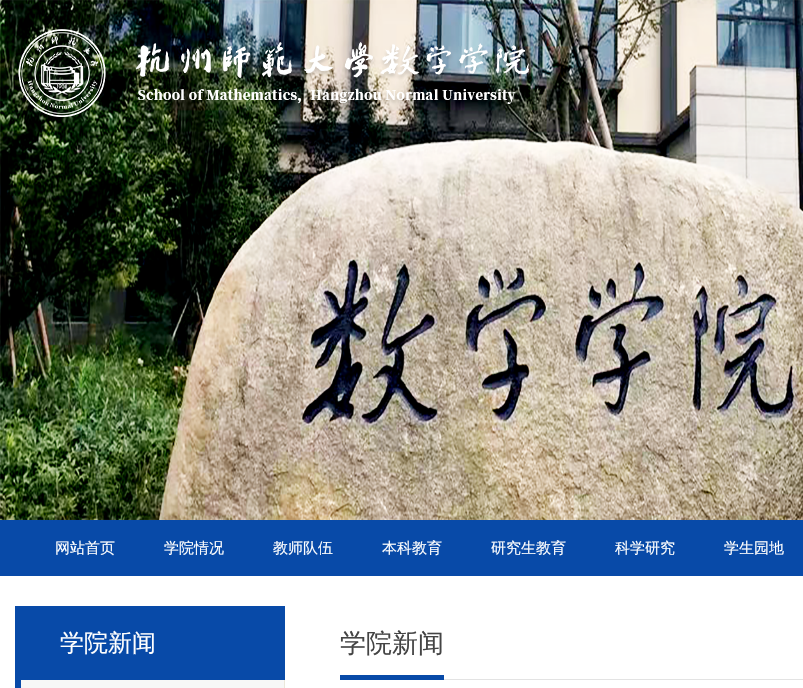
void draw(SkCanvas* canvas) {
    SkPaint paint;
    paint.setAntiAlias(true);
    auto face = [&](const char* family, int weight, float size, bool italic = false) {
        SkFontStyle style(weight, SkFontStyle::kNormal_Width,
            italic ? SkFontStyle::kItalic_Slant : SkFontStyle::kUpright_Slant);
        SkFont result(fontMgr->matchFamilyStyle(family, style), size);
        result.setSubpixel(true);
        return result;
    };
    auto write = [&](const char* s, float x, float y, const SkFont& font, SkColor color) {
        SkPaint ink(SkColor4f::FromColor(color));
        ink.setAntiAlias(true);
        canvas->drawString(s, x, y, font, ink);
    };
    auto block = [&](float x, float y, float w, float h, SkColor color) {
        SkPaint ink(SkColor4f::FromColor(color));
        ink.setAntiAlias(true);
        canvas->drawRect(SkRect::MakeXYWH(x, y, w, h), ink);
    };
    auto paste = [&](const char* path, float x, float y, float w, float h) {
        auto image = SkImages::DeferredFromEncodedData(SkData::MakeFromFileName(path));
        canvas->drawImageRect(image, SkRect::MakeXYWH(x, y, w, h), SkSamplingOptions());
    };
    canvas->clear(SK_ColorWHITE);
    paste("pic1.png", 0, 0, 803, 520);
    paste("pic2.png", 18, 29, 511, 92);
    block(0, 520, 803, 56, SkColorSetRGB(8, 74, 168));
    auto kFont1 = face("WenQuanYi Zen Hei", 500, 15);
    write("网站首页", 55, 553, kFont1, SK_ColorWHITE);
    write("学院情况", 164, 553, kFont1, SK_ColorWHITE);
    write("教师队伍", 273, 553, kFont1, SK_ColorWHITE);
    write("本科教育", 382, 553, kFont1, SK_ColorWHITE);
    write("研究生教育", 491, 553, kFont1, SK_ColorWHITE);
    write("科学研究", 615, 553, kFont1, SK_ColorWHITE);
    write("学生园地", 724, 553, kFont1, SK_ColorWHITE);
    block(15, 606, 270, 74, SkColorSetRGB(8, 74, 168));
    auto kFont2 = face("WenQuanYi Zen Hei", 500, 24);
    write("学院新闻", 60, 651, kFont2, SK_ColorWHITE);
    block(15, 680, 270, 8, SkColorSetRGB(247, 247, 247));
    block(15, 680, 6, 8, SkColorSetRGB(8, 74, 168));
    block(284, 680, 1, 8, SkColorSetRGB(235, 232, 219));
    block(444, 679, 359, 1, SkColorSetRGB(227, 227, 227));
    auto kFont3 = face("WenQuanYi Zen Hei", 500, 26);
    write("学院新闻", 340, 652, kFont3, SkColorSetRGB(68, 68, 68));
    block(340, 675, 104, 5, SkColorSetRGB(8, 74, 168));
}
